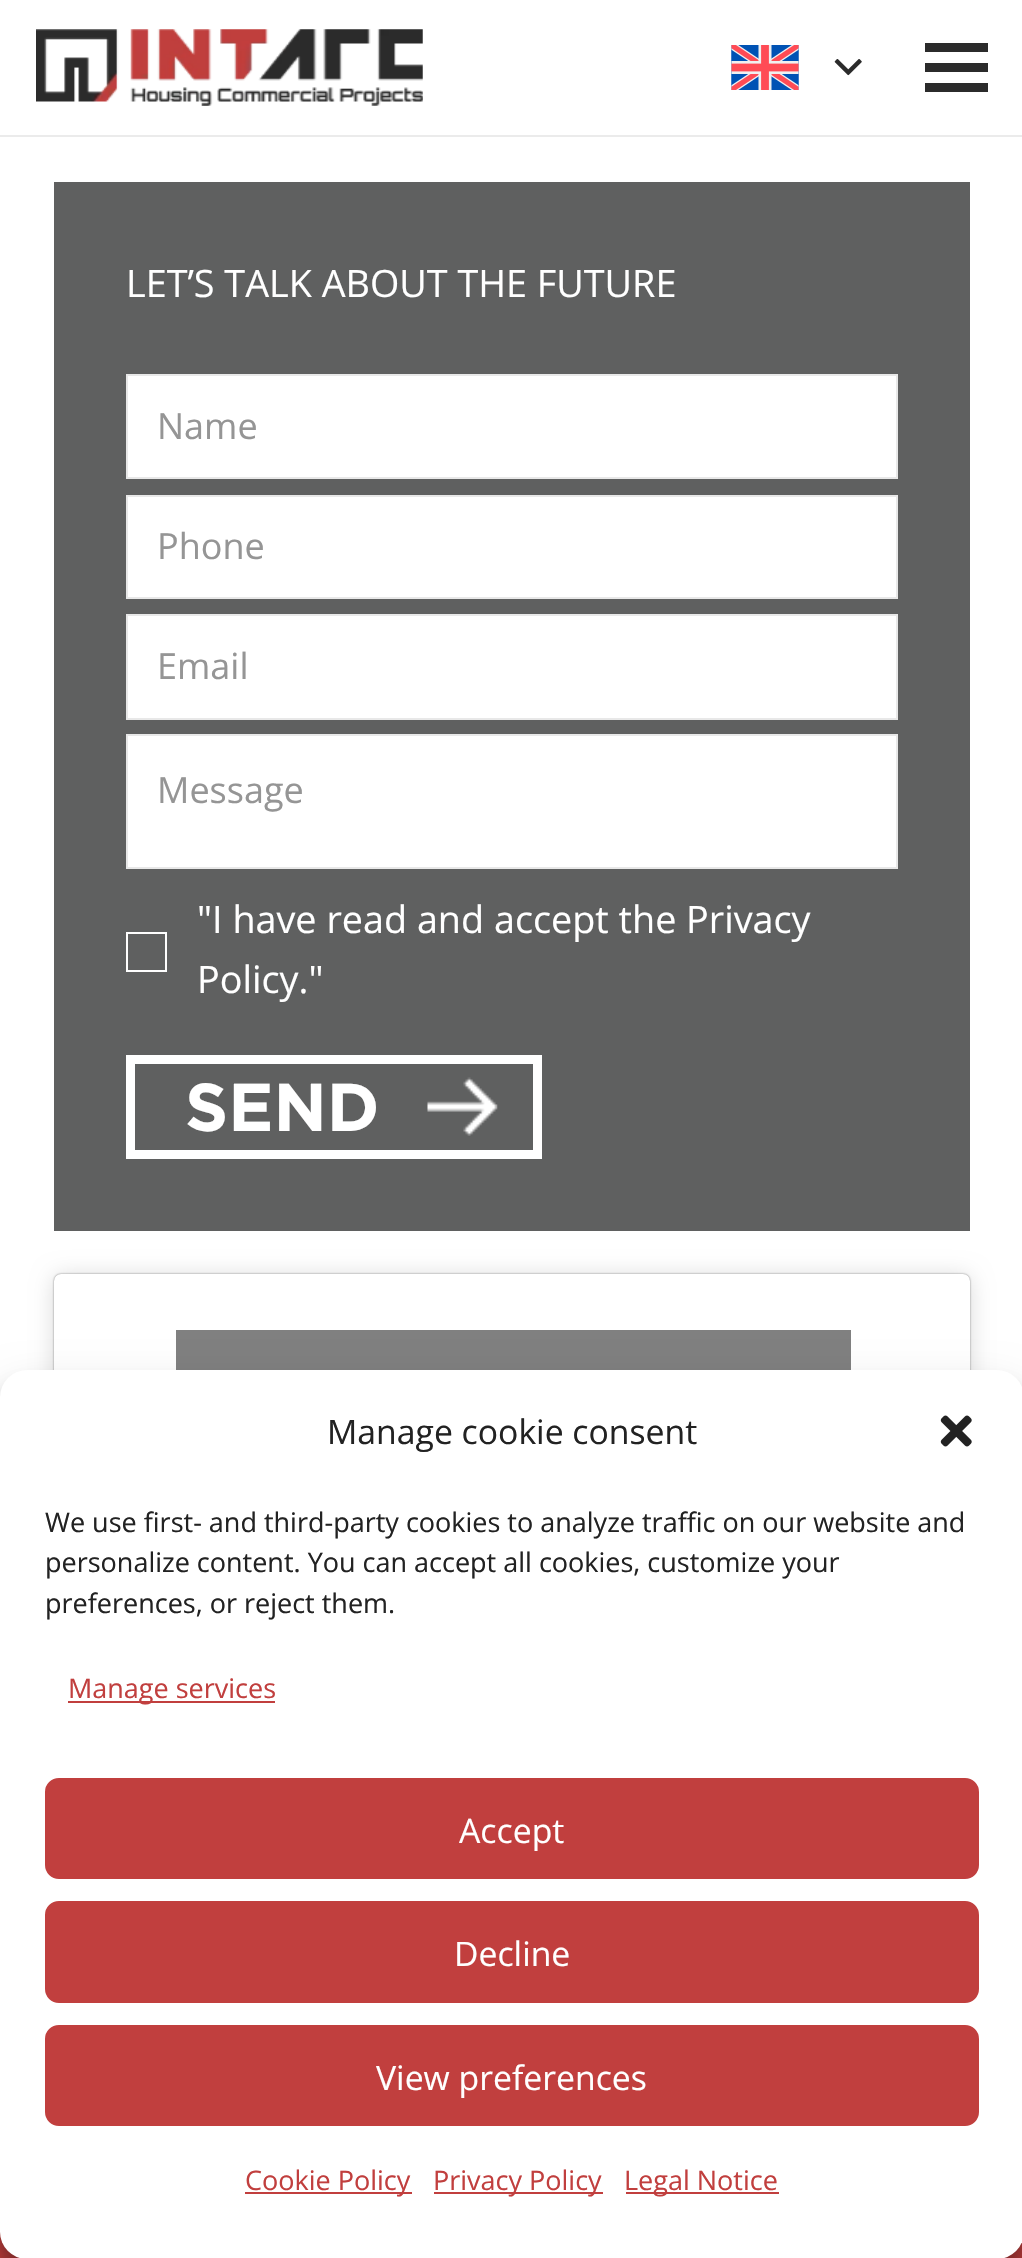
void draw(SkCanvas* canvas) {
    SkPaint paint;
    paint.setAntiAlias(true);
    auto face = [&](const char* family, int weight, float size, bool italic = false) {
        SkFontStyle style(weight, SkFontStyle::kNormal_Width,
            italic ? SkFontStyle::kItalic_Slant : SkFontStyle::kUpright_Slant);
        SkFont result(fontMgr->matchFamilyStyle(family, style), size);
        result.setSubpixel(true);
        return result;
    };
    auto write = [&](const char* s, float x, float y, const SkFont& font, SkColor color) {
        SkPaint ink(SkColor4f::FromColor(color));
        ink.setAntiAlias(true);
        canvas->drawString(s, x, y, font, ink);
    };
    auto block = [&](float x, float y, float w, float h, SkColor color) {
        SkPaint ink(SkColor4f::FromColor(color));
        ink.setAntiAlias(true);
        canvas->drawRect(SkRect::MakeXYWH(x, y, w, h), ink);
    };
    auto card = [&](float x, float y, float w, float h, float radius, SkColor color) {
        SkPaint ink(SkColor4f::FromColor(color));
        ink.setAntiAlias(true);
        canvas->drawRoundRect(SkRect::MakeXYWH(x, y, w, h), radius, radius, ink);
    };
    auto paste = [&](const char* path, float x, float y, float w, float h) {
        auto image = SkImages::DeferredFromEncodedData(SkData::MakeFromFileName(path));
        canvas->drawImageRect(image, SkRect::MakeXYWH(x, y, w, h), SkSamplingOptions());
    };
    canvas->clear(SK_ColorWHITE);
    paint.setColor(SkColorSetRGB(235, 235, 235));
    canvas->drawPath(SkPathBuilder().moveTo(0, 135).lineTo(0, 137).lineTo(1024, 137).lineTo(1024, 2).lineTo(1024, 135).close().detach(), paint);
    paste("pic1.png", 36, 29, 387, 77);
    paste("pic2.png", 731, 45, 68, 45);
    paste("pic3.png", 834, 59, 28, 17);
    block(925, 63, 63, 9, SkColorSetRGB(43, 43, 43));
    block(925, 43, 63, 9, SkColorSetRGB(43, 43, 43));
    block(925, 83, 63, 9, SkColorSetRGB(43, 43, 43));
    block(54, 182, 916, 1049, SkColorSetRGB(95, 96, 96));
    auto kFont1 = face("Open Sans", 400, 37.75f);
    write("LET’S TALK ABOUT THE FUTURE", 126, 297, kFont1, SK_ColorWHITE);
    paint.setColor(SK_ColorWHITE);
    canvas->drawRect(SkRect::MakeXYWH(127, 375, 770, 103), paint);
    paint.setStyle(SkPaint::kStroke_Style);
    paint.setStrokeWidth(2);
    paint.setColor(SkColorSetRGB(232, 232, 232));
    canvas->drawRect(SkRect::MakeXYWH(127, 375, 770, 103), paint);
    auto kFont2 = face("Open Sans", 400, 36);
    write("Name", 157, 439, kFont2, SkColorSetRGB(149, 149, 149));
    paint.setStyle(SkPaint::kFill_Style);
    paint.setColor(SK_ColorWHITE);
    canvas->drawRect(SkRect::MakeXYWH(127, 496, 770, 102), paint);
    paint.setStyle(SkPaint::kStroke_Style);
    paint.setColor(SkColorSetRGB(232, 232, 232));
    canvas->drawRect(SkRect::MakeXYWH(127, 496, 770, 102), paint);
    write("Phone", 157, 559, kFont2, SkColorSetRGB(149, 149, 149));
    paint.setStyle(SkPaint::kFill_Style);
    paint.setColor(SK_ColorWHITE);
    canvas->drawRect(SkRect::MakeXYWH(127, 615, 770, 104), paint);
    paint.setStyle(SkPaint::kStroke_Style);
    paint.setColor(SkColorSetRGB(232, 232, 232));
    canvas->drawRect(SkRect::MakeXYWH(127, 615, 770, 104), paint);
    write("Email", 157, 679, kFont2, SkColorSetRGB(149, 149, 149));
    paint.setStyle(SkPaint::kFill_Style);
    paint.setColor(SK_ColorWHITE);
    canvas->drawRect(SkRect::MakeXYWH(127, 735, 770, 133), paint);
    paint.setStyle(SkPaint::kStroke_Style);
    paint.setColor(SkColorSetRGB(232, 232, 232));
    canvas->drawRect(SkRect::MakeXYWH(127, 735, 770, 133), paint);
    write("Message", 157, 803, kFont2, SkColorSetRGB(149, 149, 149));
    paint.setColor(SK_ColorWHITE);
    canvas->drawRect(SkRect::MakeXYWH(127, 933, 39, 38), paint);
    write("\"I have read and accept the", 197, 933, kFont1, SK_ColorWHITE);
    write("Privacy", 686, 933, kFont1, SK_ColorWHITE);
    write("Policy.\"", 197, 993, kFont1, SK_ColorWHITE);
    paint.setStrokeWidth(9);
    canvas->drawRect(SkRect::MakeXYWH(130.5f, 1059.5f, 407, 95), paint);
    auto kFont3 = face("Gotham", 700, 67.5f);
    write("SEND", 185, 1131, kFont3, SK_ColorWHITE);
    paste("pic4.png", 427, 1077, 71, 59);
    paint.setStyle(SkPaint::kFill_Style);
    paint.setColor(SkColorSetARGB(38, 0, 0, 0));
    paint.setMaskFilter(SkMaskFilter::MakeBlur(kNormal_SkBlurStyle, 11));
    canvas->drawRoundRect(SkRect::MakeXYWH(54, 1276, 916, 337), 7, 7, paint);
    paint.setMaskFilter(nullptr);
    paint.setColor(SkColorSetARGB(128, 0, 0, 0));
    paint.setMaskFilter(SkMaskFilter::MakeBlur(kNormal_SkBlurStyle, 1));
    canvas->drawRoundRect(SkRect::MakeXYWH(54, 1274, 916, 337), 7, 7, paint);
    paint.setMaskFilter(nullptr);
    card(54, 1274, 916, 337, 7, SK_ColorWHITE);
    block(176, 1330, 675, 40, SkColorSetRGB(128, 128, 128));
    block(0, 2232, 1022, 26, SkColorSetRGB(193, 63, 62));
    paint.setColor(SkColorSetARGB(59, 0, 0, 0));
    paint.setMaskFilter(SkMaskFilter::MakeBlur(kNormal_SkBlurStyle, 7));
    canvas->drawRoundRect(SkRect::MakeXYWH(0, 1384, 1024, 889), 27, 27, paint);
    paint.setMaskFilter(nullptr);
    paint.setColor(SkColorSetARGB(48, 0, 0, 0));
    paint.setMaskFilter(SkMaskFilter::MakeBlur(kNormal_SkBlurStyle, 22.5f));
    canvas->drawRoundRect(SkRect::MakeXYWH(0, 1393, 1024, 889), 27, 27, paint);
    paint.setMaskFilter(nullptr);
    card(0, 1370, 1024, 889, 27, SK_ColorWHITE);
    auto kFont4 = face("Open Sans", 400, 33.75f);
    write("Manage cookie consent", 327, 1444, kFont4, SkColorSetRGB(34, 34, 34));
    paste("pic5.png", 940, 1415, 32, 32);
    auto kFont5 = face("Open Sans", 400, 27);
    write("We use first- and third-party cookies to analyze traffic on our website and", 45, 1532, kFont5, SkColorSetRGB(34, 34, 34));
    write("personalize content. You can accept all cookies, customize your", 45, 1572, kFont5, SkColorSetRGB(34, 34, 34));
    write("preferences, or reject them.", 45, 1613, kFont5, SkColorSetRGB(34, 34, 34));
    block(68, 1701, 207, 2, SkColorSetRGB(193, 63, 62));
    write("Manage services", 68, 1698, kFont5, SkColorSetRGB(193, 63, 62));
    paint.setColor(SkColorSetRGB(193, 63, 62));
    canvas->drawRoundRect(SkRect::MakeXYWH(46, 1779, 932, 99), 13, 13, paint);
    paint.setStyle(SkPaint::kStroke_Style);
    paint.setStrokeWidth(2);
    canvas->drawRoundRect(SkRect::MakeXYWH(46, 1779, 932, 99), 13, 13, paint);
    write("Accept", 459, 1843, kFont4, SK_ColorWHITE);
    paint.setStyle(SkPaint::kFill_Style);
    canvas->drawRoundRect(SkRect::MakeXYWH(46, 1902, 932, 100), 13, 13, paint);
    paint.setStyle(SkPaint::kStroke_Style);
    canvas->drawRoundRect(SkRect::MakeXYWH(46, 1902, 932, 100), 13, 13, paint);
    write("Decline", 454, 1966, kFont4, SK_ColorWHITE);
    paint.setStyle(SkPaint::kFill_Style);
    canvas->drawRoundRect(SkRect::MakeXYWH(46, 2026, 932, 99), 13, 13, paint);
    paint.setStyle(SkPaint::kStroke_Style);
    canvas->drawRoundRect(SkRect::MakeXYWH(46, 2026, 932, 99), 13, 13, paint);
    write("View preferences", 376, 2090, kFont4, SK_ColorWHITE);
    block(245, 2192, 167, 2, SkColorSetRGB(193, 63, 62));
    write("Cookie Policy", 245, 2190, kFont5, SkColorSetRGB(193, 63, 62));
    block(434, 2192, 169, 2, SkColorSetRGB(193, 63, 62));
    write("Privacy Policy", 433, 2190, kFont5, SkColorSetRGB(193, 63, 62));
    block(626, 2192, 153, 2, SkColorSetRGB(193, 63, 62));
    write("Legal Notice", 624, 2190, kFont5, SkColorSetRGB(193, 63, 62));
}
